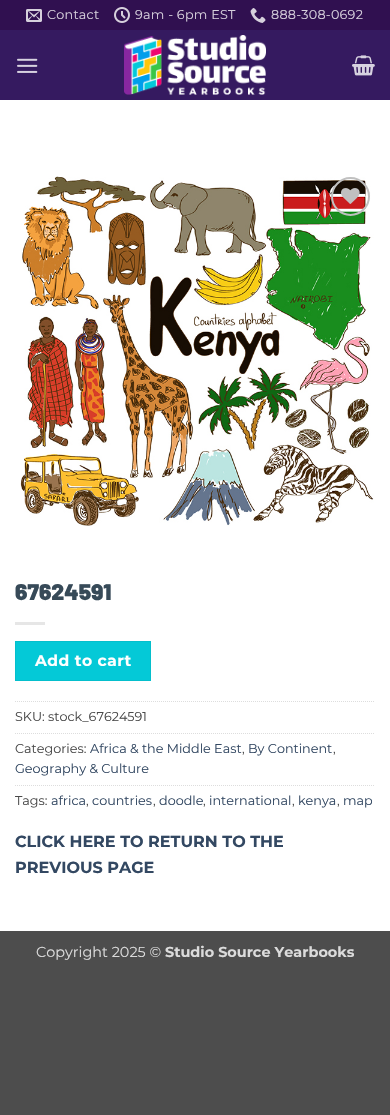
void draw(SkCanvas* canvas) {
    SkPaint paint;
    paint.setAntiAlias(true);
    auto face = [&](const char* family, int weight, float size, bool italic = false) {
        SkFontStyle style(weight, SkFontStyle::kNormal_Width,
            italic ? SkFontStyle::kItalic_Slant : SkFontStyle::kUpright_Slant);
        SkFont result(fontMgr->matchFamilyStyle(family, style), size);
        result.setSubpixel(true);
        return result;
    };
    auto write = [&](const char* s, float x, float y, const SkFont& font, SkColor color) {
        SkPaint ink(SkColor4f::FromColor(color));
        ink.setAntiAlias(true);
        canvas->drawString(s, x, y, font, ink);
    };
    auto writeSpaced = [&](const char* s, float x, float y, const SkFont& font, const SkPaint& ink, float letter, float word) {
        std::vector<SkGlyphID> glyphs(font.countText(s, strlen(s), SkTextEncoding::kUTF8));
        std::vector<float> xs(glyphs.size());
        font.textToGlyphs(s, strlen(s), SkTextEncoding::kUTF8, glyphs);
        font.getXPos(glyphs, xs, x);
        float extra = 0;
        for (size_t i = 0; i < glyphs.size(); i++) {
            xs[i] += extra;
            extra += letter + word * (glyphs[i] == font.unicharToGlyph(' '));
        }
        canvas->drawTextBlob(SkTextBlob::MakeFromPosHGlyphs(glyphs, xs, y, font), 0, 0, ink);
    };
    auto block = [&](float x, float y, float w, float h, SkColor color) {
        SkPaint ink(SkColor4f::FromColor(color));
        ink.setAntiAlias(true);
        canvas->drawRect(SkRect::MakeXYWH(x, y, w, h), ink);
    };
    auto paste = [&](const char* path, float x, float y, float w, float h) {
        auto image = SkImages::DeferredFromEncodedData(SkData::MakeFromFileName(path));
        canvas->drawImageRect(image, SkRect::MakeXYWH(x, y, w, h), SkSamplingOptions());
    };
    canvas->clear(SkColorSetRGB(77, 77, 77));
    block(0, 100, 390, 831, SK_ColorWHITE);
    block(0, 0, 390, 30, SkColorSetRGB(48, 16, 80));
    paste("pic1.png", 26, 9, 16, 13);
    auto kFont1 = face("Montserrat", 400, 12.75f);
    paint.setColor(SkColorSetRGB(214, 207, 220));
    writeSpaced("Contact", 47, 19, kFont1, paint, 0.25f, 0);
    paste("pic2.png", 114, 7, 16, 16);
    writeSpaced("9am - 6pm EST", 135, 19, kFont1, paint, 0.25f, 0);
    paste("pic3.png", 250, 8, 16, 15);
    writeSpaced("888-308-0692", 271, 19, kFont1, paint, 0.25f, 0);
    block(0, 30, 390, 70, SkColorSetRGB(53, 26, 96));
    paste("pic4.png", 17, 58, 21, 15);
    paste("pic5.png", 124, 35, 142, 60);
    paste("pic6.png", 352, 55, 23, 21);
    paste("pic7.png", 20, 176, 354, 350);
    paint.setStyle(SkPaint::kStroke_Style);
    paint.setStrokeWidth(2);
    paint.setColor(SkColorSetRGB(192, 192, 192));
    canvas->drawCircle(350.5f, 196.5f, 18.5f, paint);
    paste("pic8.png", 341, 188, 19, 16);
    auto kFont2 = face("Barlow", 900, 22.5f);
    write("67624591", 15, 600, kFont2, SkColorSetRGB(55, 74, 88));
    block(15, 622, 30, 3, SkColorSetRGB(230, 230, 230));
    paint.setStyle(SkPaint::kFill_Style);
    paint.setColor(SkColorSetRGB(4, 201, 215));
    canvas->drawRect(SkRect::MakeXYWH(15.5f, 641.5f, 135, 39), paint);
    paint.setStyle(SkPaint::kStroke_Style);
    paint.setStrokeWidth(1);
    paint.setColor(SkColorSetRGB(4, 191, 204));
    canvas->drawRect(SkRect::MakeXYWH(15.5f, 641.5f, 135, 39), paint);
    auto kFont3 = face("Montserrat", 700, 15.5f);
    paint.setStyle(SkPaint::kFill_Style);
    paint.setColor(SK_ColorWHITE);
    writeSpaced("Add to cart", 35, 666, kFont3, paint, 0.5f, 0);
    paint.setStyle(SkPaint::kStroke_Style);
    paint.setColor(SkColorSetRGB(221, 221, 221));
    paint.setPathEffect(SkDashPathEffect::Make({{1, 1}}, 0));
    canvas->drawPath(SkPathBuilder().moveTo(15, 701.5f).lineTo(375, 701.5f).detach(), paint);
    paint.setPathEffect(nullptr);
    write("SKU: stock_67624591", 15, 721, kFont1, SkColorSetRGB(74, 74, 74));
    paint.setPathEffect(SkDashPathEffect::Make({{1, 1}}, 0));
    canvas->drawPath(SkPathBuilder().moveTo(15, 733.5f).lineTo(375, 733.5f).detach(), paint);
    paint.setPathEffect(nullptr);
    write("Categories:", 15, 753, kFont1, SkColorSetRGB(74, 74, 74));
    write("Africa & the Middle East", 90, 753, kFont1, SkColorSetRGB(51, 72, 98));
    write(",", 242, 753, kFont1, SkColorSetRGB(74, 74, 74));
    write("By Continent", 248, 753, kFont1, SkColorSetRGB(51, 72, 98));
    write(",", 333, 753, kFont1, SkColorSetRGB(74, 74, 74));
    write("Geography & Culture", 15, 773, kFont1, SkColorSetRGB(51, 72, 98));
    paint.setPathEffect(SkDashPathEffect::Make({{1, 1}}, 0));
    canvas->drawPath(SkPathBuilder().moveTo(15, 785.5f).lineTo(375, 785.5f).detach(), paint);
    paint.setPathEffect(nullptr);
    write("Tags:", 15, 805, kFont1, SkColorSetRGB(74, 74, 74));
    write("africa", 51, 805, kFont1, SkColorSetRGB(51, 72, 98));
    write(",", 86, 805, kFont1, SkColorSetRGB(74, 74, 74));
    write("countries", 92, 805, kFont1, SkColorSetRGB(51, 72, 98));
    write(",", 153, 805, kFont1, SkColorSetRGB(74, 74, 74));
    write("doodle", 159, 805, kFont1, SkColorSetRGB(51, 72, 98));
    write(",", 203, 805, kFont1, SkColorSetRGB(74, 74, 74));
    write("international", 209, 805, kFont1, SkColorSetRGB(51, 72, 98));
    write(",", 292, 805, kFont1, SkColorSetRGB(74, 74, 74));
    write("kenya", 298, 805, kFont1, SkColorSetRGB(51, 72, 98));
    write(",", 337, 805, kFont1, SkColorSetRGB(74, 74, 74));
    write("map", 343, 805, kFont1, SkColorSetRGB(51, 72, 98));
    auto kFont4 = face("Montserrat", 700, 16);
    write("CLICK HERE TO RETURN TO THE", 15, 847, kFont4, SkColorSetRGB(51, 72, 98));
    write("PREVIOUS PAGE", 15, 873, kFont4, SkColorSetRGB(51, 72, 98));
    auto kFont5 = face("Montserrat", 400, 14.4f);
    write("Copyright 2025 ©", 36, 957, kFont5, SkColorSetRGB(219, 219, 219));
    auto kFont6 = face("Montserrat", 700, 14.4f);
    write("Studio Source Yearbooks", 165, 957, kFont6, SkColorSetRGB(219, 219, 219));
}
